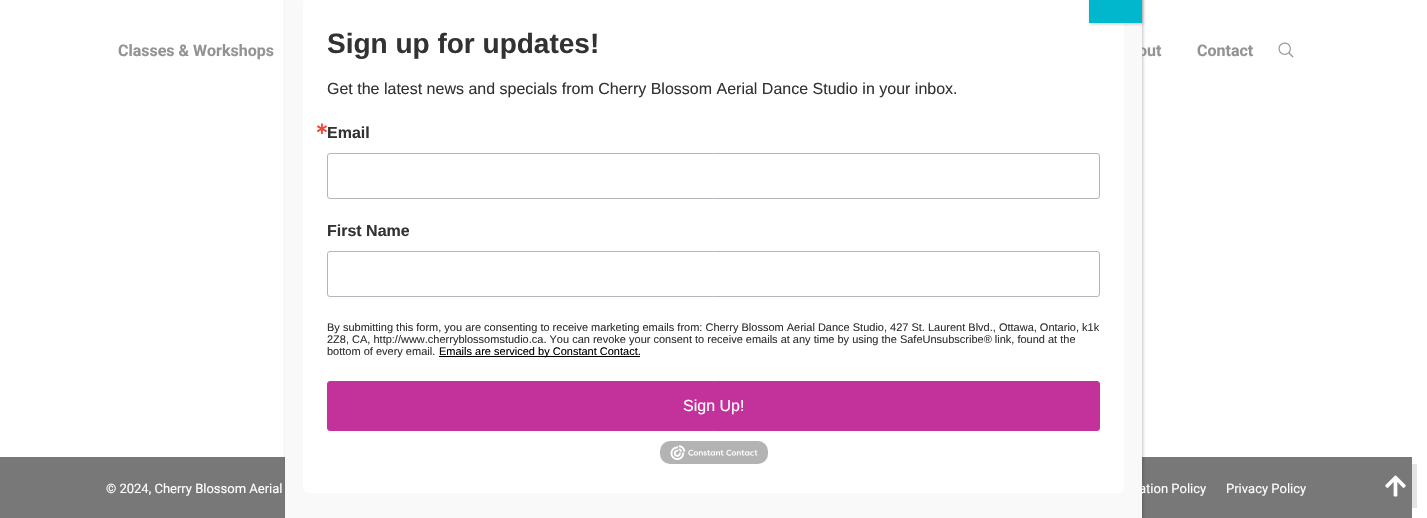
void draw(SkCanvas* canvas) {
    SkPaint paint;
    paint.setAntiAlias(true);
    auto face = [&](const char* family, int weight, float size, bool italic = false) {
        SkFontStyle style(weight, SkFontStyle::kNormal_Width,
            italic ? SkFontStyle::kItalic_Slant : SkFontStyle::kUpright_Slant);
        SkFont result(fontMgr->matchFamilyStyle(family, style), size);
        result.setSubpixel(true);
        return result;
    };
    auto write = [&](const char* s, float x, float y, const SkFont& font, SkColor color) {
        SkPaint ink(SkColor4f::FromColor(color));
        ink.setAntiAlias(true);
        canvas->drawString(s, x, y, font, ink);
    };
    auto block = [&](float x, float y, float w, float h, SkColor color) {
        SkPaint ink(SkColor4f::FromColor(color));
        ink.setAntiAlias(true);
        canvas->drawRect(SkRect::MakeXYWH(x, y, w, h), ink);
    };
    auto card = [&](float x, float y, float w, float h, float radius, SkColor color) {
        SkPaint ink(SkColor4f::FromColor(color));
        ink.setAntiAlias(true);
        canvas->drawRoundRect(SkRect::MakeXYWH(x, y, w, h), radius, radius, ink);
    };
    auto paste = [&](const char* path, float x, float y, float w, float h) {
        auto image = SkImages::DeferredFromEncodedData(SkData::MakeFromFileName(path));
        canvas->drawImageRect(image, SkRect::MakeXYWH(x, y, w, h), SkSamplingOptions());
    };
    canvas->clear(SK_ColorWHITE);
    block(0, 457, 1412, 61, SkColorSetRGB(120, 120, 120));
    paint.setColor(SkColorSetARGB(59, 2, 2, 2));
    paint.setMaskFilter(SkMaskFilter::MakeBlur(kNormal_SkBlurStyle, 1.5f));
    canvas->drawRect(SkRect::MakeXYWH(286, -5, 857, 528), paint);
    paint.setMaskFilter(nullptr);
    auto kFont1 = face("Roboto", 700, 16);
    write("out", 1138, 56, kFont1, SkColorSetRGB(147, 147, 147));
    auto kFont2 = face("Roboto", 400, 13);
    write("ation Policy", 1139, 493, kFont2, SK_ColorWHITE);
    block(285, 0, 857, 518, SkColorSetRGB(249, 249, 249));
    card(303, -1, 821, 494, 5, SK_ColorWHITE);
    paint.setMaskFilter(SkMaskFilter::MakeBlur(kNormal_SkBlurStyle, 1.5f));
    canvas->drawRect(SkRect::MakeXYWH(1090, -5, 53, 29), paint);
    paint.setMaskFilter(nullptr);
    block(1089, 0, 53, 23, SkColorSetRGB(0, 183, 205));
    auto kFont3 = face("Liberation Sans", 700, 28);
    write("Sign up for updates!", 327, 53, kFont3, SkColorSetRGB(50, 50, 50));
    auto kFont4 = face("Liberation Sans", 400, 16);
    write("Get the latest news and specials from Cherry Blossom Aerial Dance Studio in your inbox.", 327, 94, kFont4, SkColorSetRGB(50, 50, 50));
    auto kFont5 = face("DejaVu Sans", 700, 16);
    write("∗", 315, 134, kFont5, SkColorSetRGB(245, 70, 59));
    auto kFont6 = face("Liberation Sans", 700, 16);
    write("Email", 327, 138, kFont6, SkColorSetRGB(50, 50, 50));
    paint.setStyle(SkPaint::kStroke_Style);
    paint.setStrokeWidth(1);
    paint.setColor(SkColorSetRGB(176, 182, 187));
    canvas->drawRoundRect(SkRect::MakeXYWH(327.5f, 153.5f, 772, 45), 2.5f, 2.5f, paint);
    write("First Name", 327, 236, kFont6, SkColorSetRGB(50, 50, 50));
    canvas->drawRoundRect(SkRect::MakeXYWH(327.5f, 251.5f, 772, 45), 2.5f, 2.5f, paint);
    auto kFont7 = face("Liberation Sans", 400, 11);
    write("By submitting this form, you are consenting to receive marketing emails from: Cherry Blossom Aerial Dance Studio, 427 St. Laurent Blvd., Ottawa, Ontario, k1k", 327, 331, kFont7, SkColorSetRGB(50, 50, 50));
    write("2Z8, CA, http://www.cherryblossomstudio.ca. You can revoke your consent to receive emails at any time by using the SafeUnsubscribe® link, found at the", 327, 343, kFont7, SkColorSetRGB(50, 50, 50));
    write("bottom of every email.", 327, 355, kFont7, SkColorSetRGB(50, 50, 50));
    block(439, 356, 201, 1, SK_ColorBLACK);
    write("Emails are serviced by Constant Contact.", 439, 355, kFont7, SK_ColorBLACK);
    paint.setStyle(SkPaint::kFill_Style);
    paint.setColor(SkColorSetRGB(195, 49, 154));
    canvas->drawRoundRect(SkRect::MakeXYWH(327.5f, 381.5f, 772, 49), 2.5f, 2.5f, paint);
    paint.setStyle(SkPaint::kStroke_Style);
    canvas->drawRoundRect(SkRect::MakeXYWH(327.5f, 381.5f, 772, 49), 2.5f, 2.5f, paint);
    write("Sign Up!", 683, 411, kFont4, SK_ColorWHITE);
    card(660, 441, 108, 23, 10, SkColorSetRGB(179, 179, 179));
    paste("pic1.png", 670, 445, 88, 15);
    write("Classes & Workshops", 118, 56, kFont1, SkColorSetRGB(147, 147, 147));
    write("Contact", 1197, 56, kFont1, SkColorSetRGB(147, 147, 147));
    paste("pic2.png", 1278, 42, 16, 16);
    write("© 2024, Cherry Blossom Aerial", 106, 493, kFont2, SK_ColorWHITE);
    write("Privacy Policy", 1226, 493, kFont2, SK_ColorWHITE);
    block(1412, 464, 5, 44, SkColorSetARGB(51, 120, 120, 120));
    paste("pic3.png", 1385, 475, 21, 22);
}
